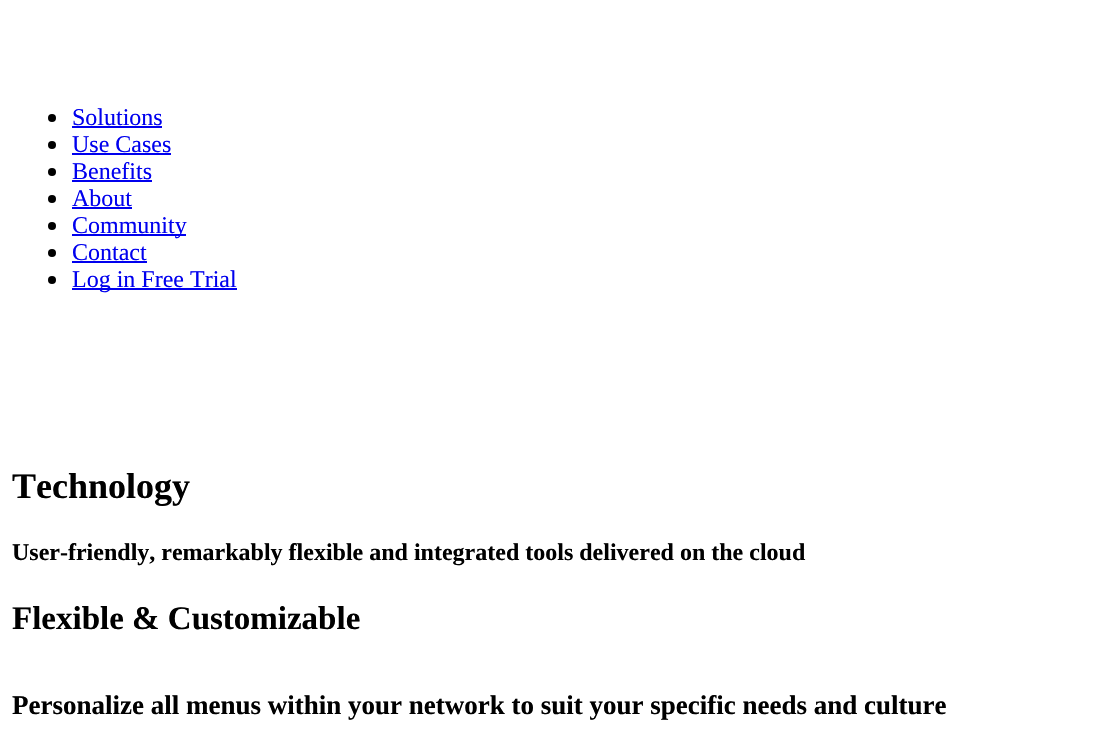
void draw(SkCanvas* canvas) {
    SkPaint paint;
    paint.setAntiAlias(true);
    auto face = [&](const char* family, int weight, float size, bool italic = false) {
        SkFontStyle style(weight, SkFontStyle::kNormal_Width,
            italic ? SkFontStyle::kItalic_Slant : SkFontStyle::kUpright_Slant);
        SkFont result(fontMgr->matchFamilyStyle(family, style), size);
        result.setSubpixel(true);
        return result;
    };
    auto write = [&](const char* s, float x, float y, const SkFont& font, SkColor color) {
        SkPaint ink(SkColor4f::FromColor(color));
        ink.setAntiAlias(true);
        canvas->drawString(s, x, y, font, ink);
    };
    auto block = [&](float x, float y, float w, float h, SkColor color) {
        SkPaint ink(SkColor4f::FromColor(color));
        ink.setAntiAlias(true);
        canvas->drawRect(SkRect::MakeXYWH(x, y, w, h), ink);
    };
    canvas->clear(SK_ColorWHITE);
    paint.setColor(SK_ColorBLACK);
    canvas->drawCircle(52, 118, 4, paint);
    auto kFont1 = face("Liberation Serif", 400, 24);
    write("Solutions", 72, 125, kFont1, SkColorSetRGB(0, 0, 238));
    block(72, 126, 90, 2, SkColorSetRGB(0, 0, 238));
    canvas->drawCircle(52, 145, 4, paint);
    write("Use Cases", 72, 152, kFont1, SkColorSetRGB(0, 0, 238));
    block(72, 153, 99, 2, SkColorSetRGB(0, 0, 238));
    canvas->drawCircle(52, 172, 4, paint);
    write("Benefits", 72, 179, kFont1, SkColorSetRGB(0, 0, 238));
    block(72, 180, 80, 2, SkColorSetRGB(0, 0, 238));
    canvas->drawCircle(52, 199, 4, paint);
    write("About", 72, 206, kFont1, SkColorSetRGB(0, 0, 238));
    block(72, 207, 60, 2, SkColorSetRGB(0, 0, 238));
    canvas->drawCircle(52, 226, 4, paint);
    block(72, 234, 114, 2, SkColorSetRGB(0, 0, 238));
    write("Community", 72, 233, kFont1, SkColorSetRGB(0, 0, 238));
    canvas->drawCircle(52, 253, 4, paint);
    write("Contact", 72, 260, kFont1, SkColorSetRGB(0, 0, 238));
    block(72, 261, 75, 2, SkColorSetRGB(0, 0, 238));
    canvas->drawCircle(52, 280, 4, paint);
    block(72, 288, 165, 2, SkColorSetRGB(0, 0, 238));
    write("Log in Free Trial", 72, 287, kFont1, SkColorSetRGB(0, 0, 238));
    auto kFont2 = face("Liberation Serif", 700, 36);
    write("Technology", 12, 498, kFont2, SK_ColorBLACK);
    auto kFont3 = face("Liberation Serif", 700, 24);
    write("User-friendly, remarkably flexible and integrated tools delivered on the cloud", 12, 560, kFont3, SK_ColorBLACK);
    auto kFont4 = face("Liberation Serif", 700, 33);
    write("Flexible & Customizable", 12, 629, kFont4, SK_ColorBLACK);
    auto kFont5 = face("Liberation Serif", 700, 27);
    write("Personalize all menus within your network to suit your specific needs and culture", 12, 714, kFont5, SK_ColorBLACK);
}
